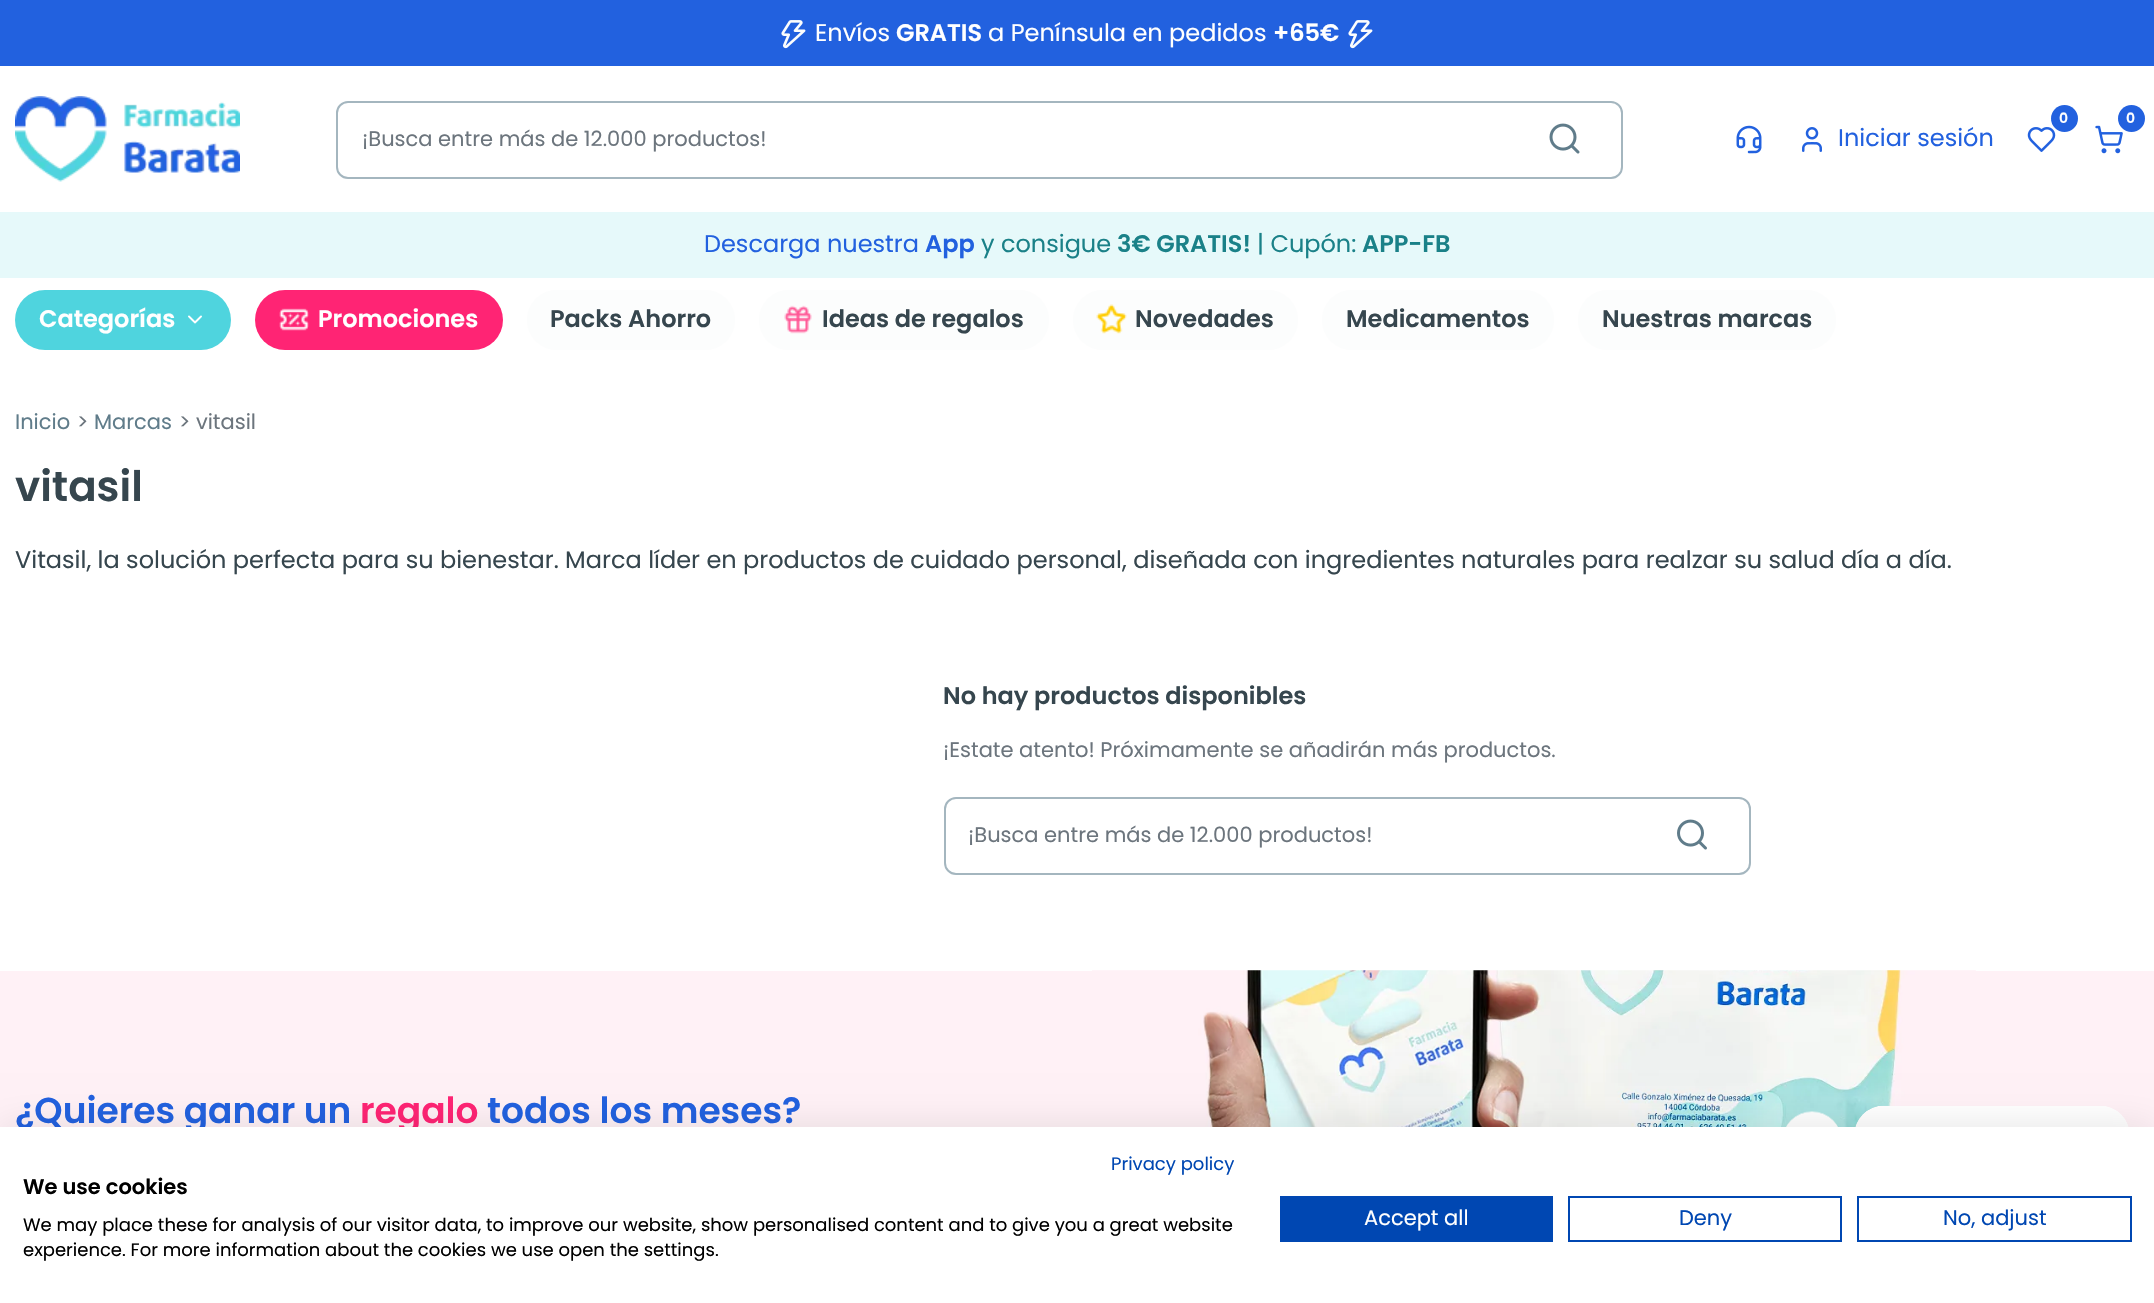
void draw(SkCanvas* canvas) {
    SkPaint paint;
    paint.setAntiAlias(true);
    auto face = [&](const char* family, int weight, float size, bool italic = false) {
        SkFontStyle style(weight, SkFontStyle::kNormal_Width,
            italic ? SkFontStyle::kItalic_Slant : SkFontStyle::kUpright_Slant);
        SkFont result(fontMgr->matchFamilyStyle(family, style), size);
        result.setSubpixel(true);
        return result;
    };
    auto write = [&](const char* s, float x, float y, const SkFont& font, SkColor color) {
        SkPaint ink(SkColor4f::FromColor(color));
        ink.setAntiAlias(true);
        canvas->drawString(s, x, y, font, ink);
    };
    auto block = [&](float x, float y, float w, float h, SkColor color) {
        SkPaint ink(SkColor4f::FromColor(color));
        ink.setAntiAlias(true);
        canvas->drawRect(SkRect::MakeXYWH(x, y, w, h), ink);
    };
    auto card = [&](float x, float y, float w, float h, float radius, SkColor color) {
        SkPaint ink(SkColor4f::FromColor(color));
        ink.setAntiAlias(true);
        canvas->drawRoundRect(SkRect::MakeXYWH(x, y, w, h), radius, radius, ink);
    };
    auto paste = [&](const char* path, float x, float y, float w, float h) {
        auto image = SkImages::DeferredFromEncodedData(SkData::MakeFromFileName(path));
        canvas->drawImageRect(image, SkRect::MakeXYWH(x, y, w, h), SkSamplingOptions());
    };
    canvas->clear(SK_ColorWHITE);
    block(0, 0, 2154, 66, SkColorSetRGB(34, 97, 223));
    paste("pic1.png", 781, 20, 25, 29);
    auto kFont1 = face("Poppins", 400, 24);
    write("Envíos", 815, 41, kFont1, SK_ColorWHITE);
    auto kFont2 = face("Poppins", 600, 24);
    write("GRATIS", 896, 41, kFont2, SK_ColorWHITE);
    write("a Península en pedidos", 988, 41, kFont1, SK_ColorWHITE);
    write("+65€", 1273, 41, kFont2, SK_ColorWHITE);
    paste("pic1.png", 1348, 20, 25, 29);
    paste("pic2.png", 15, 96, 225, 86);
    paint.setStyle(SkPaint::kStroke_Style);
    paint.setStrokeWidth(2);
    paint.setColor(SkColorSetRGB(164, 182, 191));
    canvas->drawRoundRect(SkRect::MakeXYWH(337, 102, 1285, 76), 11, 11, paint);
    auto kFont3 = face("Poppins", 400, 21);
    write("¡Busca entre más de 12.000 productos!", 362, 146, kFont3, SkColorSetRGB(108, 117, 125));
    paste("pic3.png", 1549, 123, 31, 31);
    paste("pic4.png", 2027, 127, 29, 25);
    paint.setStyle(SkPaint::kFill_Style);
    paint.setColor(SkColorSetRGB(34, 97, 223));
    canvas->drawCircle(2064.5f, 118.5f, 13.5f, paint);
    auto kFont4 = face("Poppins", 600, 14);
    write("0", 2059, 123, kFont4, SK_ColorWHITE);
    paste("pic5.png", 2095, 125, 28, 29);
    canvas->drawCircle(2131.5f, 118.5f, 13.5f, paint);
    write("0", 2126, 123, kFont4, SK_ColorWHITE);
    paste("pic6.png", 1736, 125, 26, 29);
    paste("pic7.png", 1802, 127, 20, 25);
    write("Iniciar sesión", 1838, 146, kFont1, SkColorSetRGB(34, 97, 223));
    block(0, 212, 2154, 66, SkColorSetRGB(230, 249, 250));
    write("Descarga nuestra", 704, 252, kFont1, SkColorSetRGB(34, 97, 223));
    write("App", 925, 252, kFont2, SkColorSetRGB(34, 97, 223));
    write("y consigue", 981, 252, kFont1, SkColorSetRGB(26, 129, 136));
    write("3€ GRATIS!", 1117, 252, kFont2, SkColorSetRGB(26, 129, 136));
    write("| Cupón:", 1257, 252, kFont1, SkColorSetRGB(26, 129, 136));
    write("APP-FB", 1362, 252, kFont2, SkColorSetRGB(26, 129, 136));
    write("Inicio", 15, 429, kFont3, SkColorSetRGB(96, 124, 138));
    write(">", 77, 429, kFont3, SkColorSetRGB(108, 117, 125));
    write("Marcas", 94, 429, kFont3, SkColorSetRGB(96, 124, 138));
    write("> vitasil", 179, 429, kFont3, SkColorSetRGB(108, 117, 125));
    auto kFont5 = face("Poppins", 600, 42);
    write("vitasil", 15, 501, kFont5, SkColorSetRGB(54, 70, 78));
    write("Vitasil, la solución perfecta para su bienestar. Marca líder en productos de cuidado personal, diseñada con ingredientes naturales para realzar su salud día a día.", 15, 568, kFont1, SkColorSetRGB(54, 70, 78));
    write("No hay productos disponibles", 943, 704, kFont2, SkColorSetRGB(54, 70, 78));
    write("¡Estate atento! Próximamente se añadirán más productos.", 943, 757, kFont3, SkColorSetRGB(108, 117, 125));
    paint.setStyle(SkPaint::kStroke_Style);
    paint.setColor(SkColorSetRGB(164, 182, 191));
    canvas->drawRoundRect(SkRect::MakeXYWH(945, 798, 805, 76), 11, 11, paint);
    write("¡Busca entre más de 12.000 productos!", 968, 842, kFont3, SkColorSetRGB(108, 117, 125));
    paste("pic12.png", 1677, 819, 30, 31);
    canvas->save();
    canvas->clipRect(SkRect::MakeXYWH(0, 971, 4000, 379));
    paint.setStrokeWidth(2154);
    paint.setColor(SkColorSetRGB(255, 241, 246));
    canvas->drawRect(SkRect::MakeXYWH(-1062, -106, 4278, 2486), paint);
    canvas->restore();
    card(15, 290, 216, 60, 30, SkColorSetRGB(79, 212, 222));
    write("Categorías", 39, 327, kFont2, SK_ColorWHITE);
    paste("pic8.png", 188, 315, 14, 9);
    card(255, 290, 248, 60, 30, SkColorSetRGB(255, 36, 116));
    paste("pic9.png", 279, 308, 30, 23);
    write("Promociones", 318, 327, kFont2, SK_ColorWHITE);
    card(527, 290, 208, 60, 30, SkColorSetRGB(252, 253, 253));
    write("Packs Ahorro", 550, 327, kFont2, SkColorSetRGB(54, 70, 78));
    card(759, 290, 290, 60, 30, SkColorSetRGB(252, 253, 253));
    paste("pic10.png", 784, 305, 28, 29);
    write("Ideas de regalos", 822, 327, kFont2, SkColorSetRGB(54, 70, 78));
    card(1073, 290, 225, 60, 30, SkColorSetRGB(252, 253, 253));
    paste("pic11.png", 1096, 304, 31, 30);
    write("Novedades", 1135, 327, kFont2, SkColorSetRGB(54, 70, 78));
    card(1322, 290, 232, 60, 30, SkColorSetRGB(252, 253, 253));
    write("Medicamentos", 1346, 327, kFont2, SkColorSetRGB(54, 70, 78));
    card(1578, 290, 258, 60, 30, SkColorSetRGB(252, 253, 253));
    write("Nuestras marcas", 1602, 327, kFont2, SkColorSetRGB(54, 70, 78));
    block(15, 971, 2124, 156, SkColorSetRGB(255, 241, 246));
    auto kFont6 = face("Poppins", 600, 36);
    write("¿Quieres ganar un", 15, 1123, kFont6, SkColorSetRGB(34, 97, 223));
    write("regalo", 360, 1123, kFont6, SkColorSetRGB(255, 36, 116));
    write("todos los meses?", 487, 1123, kFont6, SkColorSetRGB(34, 97, 223));
    paste("pic13.png", 1092, 970, 884, 157);
    paste("pic14.png", 1786, 1111, 52, 16);
    paste("pic15.png", 1855, 1105, 274, 22);
    paint.setStyle(SkPaint::kFill_Style);
    paint.setColor(SkColorSetARGB(26, 0, 0, 0));
    paint.setMaskFilter(SkMaskFilter::MakeBlur(kNormal_SkBlurStyle, 18));
    canvas->drawRect(SkRect::MakeXYWH(0, 1127, 2154, 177), paint);
    paint.setMaskFilter(nullptr);
    block(0, 1127, 2154, 176, SK_ColorWHITE);
    auto kFont7 = face("Poppins", 400, 18);
    write("Privacy policy", 1111, 1170, kFont7, SkColorSetRGB(0, 71, 178));
    auto kFont8 = face("Poppins", 600, 21);
    write("We use cookies", 23, 1194, kFont8, SK_ColorBLACK);
    write("We may place these for analysis of our visitor data, to improve our website, show personalised content and to give you a great website", 23, 1231, kFont7, SK_ColorBLACK);
    write("experience. For more information about the cookies we use open the settings.", 23, 1256, kFont7, SK_ColorBLACK);
    block(1280, 1196, 273, 46, SkColorSetRGB(0, 71, 178));
    write("Accept all", 1364, 1225, kFont3, SK_ColorWHITE);
    paint.setStyle(SkPaint::kStroke_Style);
    paint.setStrokeWidth(2);
    paint.setColor(SkColorSetRGB(0, 71, 178));
    canvas->drawRect(SkRect::MakeXYWH(1569, 1197, 272, 44), paint);
    write("Deny", 1679, 1225, kFont3, SkColorSetRGB(0, 71, 178));
    canvas->drawRect(SkRect::MakeXYWH(1858, 1197, 273, 44), paint);
    write("No, adjust", 1943, 1225, kFont3, SkColorSetRGB(0, 71, 178));
}
